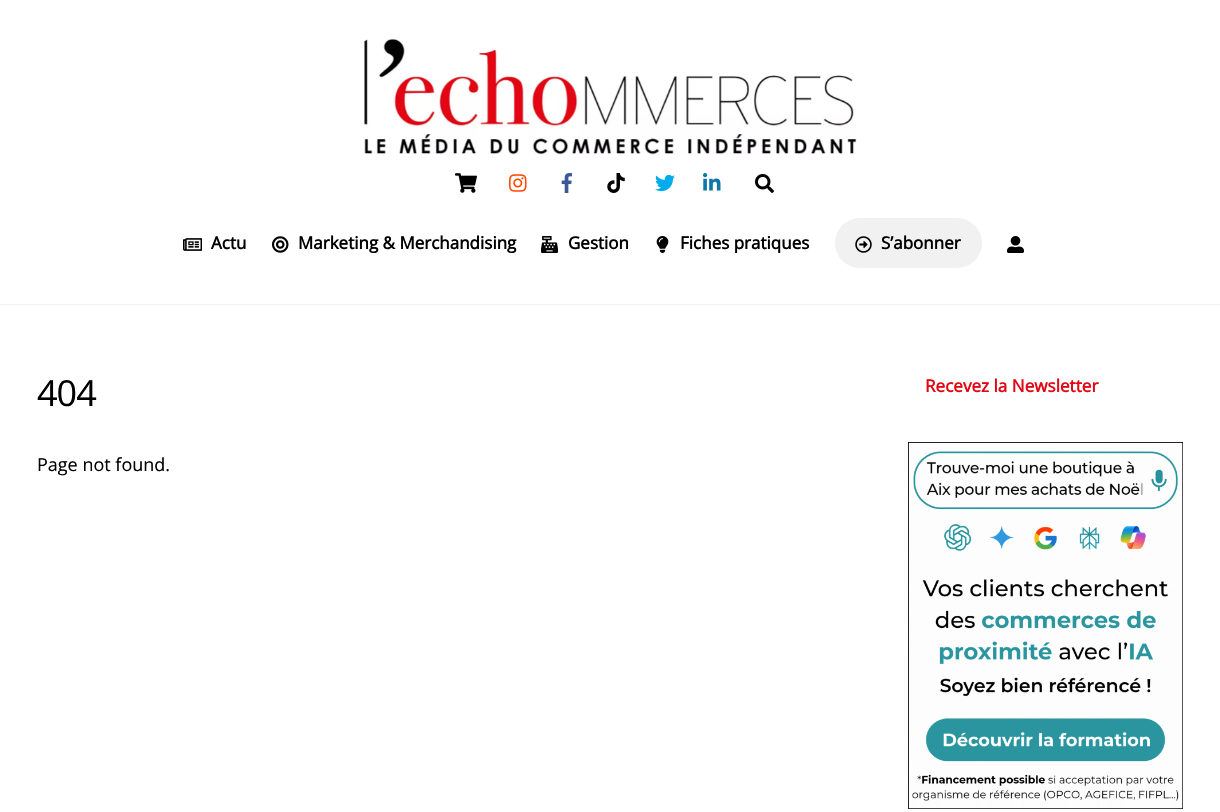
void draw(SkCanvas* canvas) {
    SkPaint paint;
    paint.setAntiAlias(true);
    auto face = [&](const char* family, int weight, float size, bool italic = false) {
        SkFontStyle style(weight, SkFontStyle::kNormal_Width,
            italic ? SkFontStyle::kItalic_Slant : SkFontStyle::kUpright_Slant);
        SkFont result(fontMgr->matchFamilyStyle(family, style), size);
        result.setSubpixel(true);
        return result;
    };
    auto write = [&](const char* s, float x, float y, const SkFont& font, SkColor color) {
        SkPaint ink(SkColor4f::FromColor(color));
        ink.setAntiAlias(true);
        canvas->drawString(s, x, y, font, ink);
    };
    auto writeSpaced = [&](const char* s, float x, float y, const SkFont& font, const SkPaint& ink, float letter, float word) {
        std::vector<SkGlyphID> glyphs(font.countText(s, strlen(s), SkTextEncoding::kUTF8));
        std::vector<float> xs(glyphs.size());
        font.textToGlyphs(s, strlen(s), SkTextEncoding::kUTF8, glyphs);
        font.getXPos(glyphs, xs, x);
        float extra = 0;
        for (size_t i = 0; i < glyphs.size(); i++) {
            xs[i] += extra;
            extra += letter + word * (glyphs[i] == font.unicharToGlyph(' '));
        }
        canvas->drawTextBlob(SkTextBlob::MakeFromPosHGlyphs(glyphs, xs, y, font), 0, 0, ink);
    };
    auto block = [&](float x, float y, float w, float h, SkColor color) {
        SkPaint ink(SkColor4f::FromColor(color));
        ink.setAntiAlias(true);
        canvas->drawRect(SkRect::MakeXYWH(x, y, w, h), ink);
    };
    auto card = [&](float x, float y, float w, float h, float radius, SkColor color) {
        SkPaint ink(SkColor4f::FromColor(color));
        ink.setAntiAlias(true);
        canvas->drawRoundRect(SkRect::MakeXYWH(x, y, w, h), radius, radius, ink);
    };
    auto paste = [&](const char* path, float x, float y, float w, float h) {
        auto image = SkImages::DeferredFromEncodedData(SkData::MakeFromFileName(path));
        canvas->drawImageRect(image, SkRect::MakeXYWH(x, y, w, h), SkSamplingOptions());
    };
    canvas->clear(SK_ColorWHITE);
    block(0, 304, 1220, 1, SkColorSetRGB(242, 242, 242));
    paste("pic1.png", 364, 39, 493, 116);
    paste("pic2.png", 455, 173, 22, 20);
    paste("pic3.png", 509, 174, 18, 18);
    paste("pic4.png", 561, 173, 11, 20);
    paste("pic5.png", 607, 173, 18, 20);
    paste("pic6.png", 655, 174, 20, 18);
    paste("pic7.png", 703, 173, 18, 18);
    paste("pic8.png", 755, 174, 19, 19);
    paste("pic9.png", 183, 238, 19, 13);
    auto kFont1 = face("Open Sans", 700, 17);
    write("Actu", 211, 249, kFont1, SK_ColorBLACK);
    paste("pic10.png", 272, 236, 17, 17);
    write("Marketing & Merchandising", 298, 249, kFont1, SK_ColorBLACK);
    paste("pic11.png", 541, 236, 17, 17);
    write("Gestion", 568, 249, kFont1, SK_ColorBLACK);
    paste("pic12.png", 656, 236, 13, 17);
    write("Fiches pratiques", 680, 249, kFont1, SK_ColorBLACK);
    card(835, 218, 147, 50, 25, SkColorSetRGB(241, 241, 241));
    paste("pic13.png", 855, 236, 17, 17);
    write("S’abonner", 881, 249, kFont1, SK_ColorBLACK);
    paste("pic14.png", 1007, 236, 17, 17);
    auto kFont2 = face("Open Sans", 400, 36);
    paint.setColor(SK_ColorBLACK);
    writeSpaced("404", 37, 406, kFont2, paint, -1, 0);
    auto kFont3 = face("Open Sans", 400, 18);
    write("Page not found.", 37, 471, kFont3, SK_ColorBLACK);
    auto kFont4 = face("Open Sans", 700, 17.1f);
    write("Recevez la Newsletter", 925, 392, kFont4, SkColorSetRGB(227, 6, 19));
    paste("pic15.png", 908, 442, 275, 367);
}
